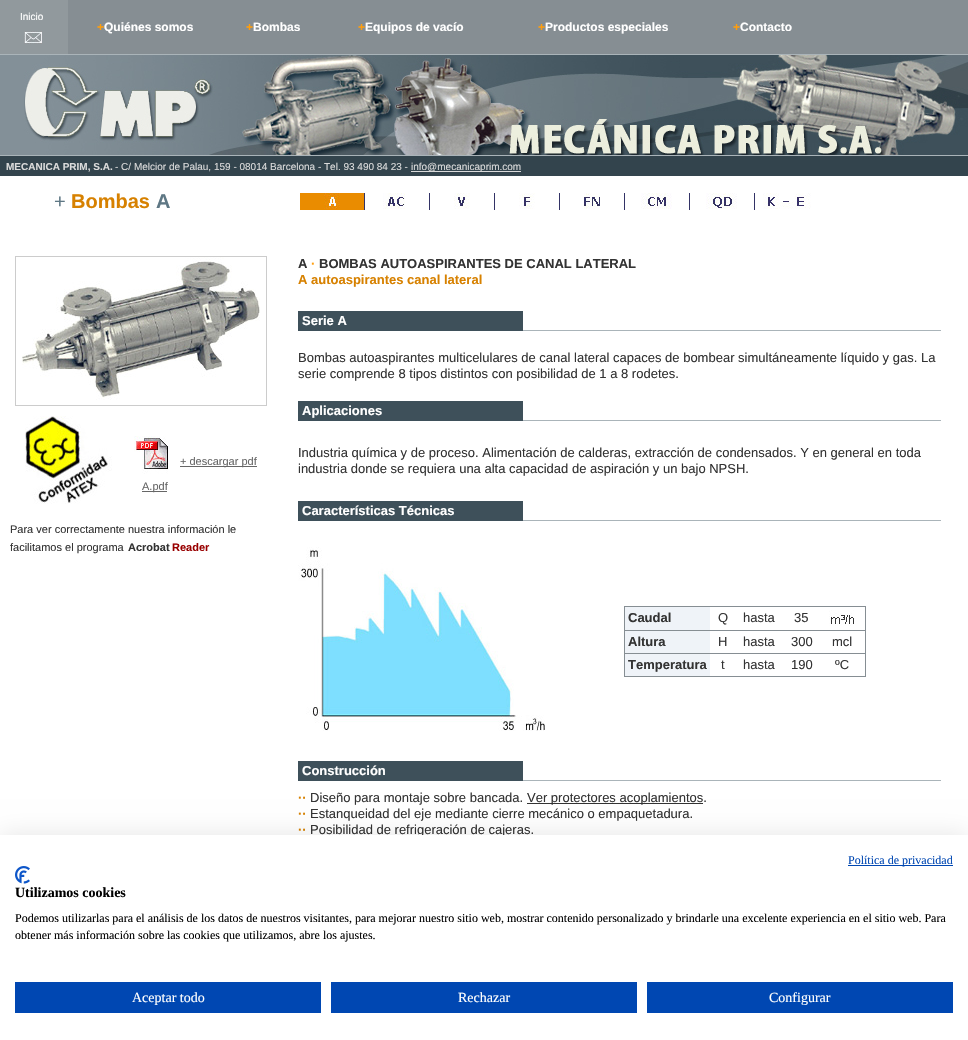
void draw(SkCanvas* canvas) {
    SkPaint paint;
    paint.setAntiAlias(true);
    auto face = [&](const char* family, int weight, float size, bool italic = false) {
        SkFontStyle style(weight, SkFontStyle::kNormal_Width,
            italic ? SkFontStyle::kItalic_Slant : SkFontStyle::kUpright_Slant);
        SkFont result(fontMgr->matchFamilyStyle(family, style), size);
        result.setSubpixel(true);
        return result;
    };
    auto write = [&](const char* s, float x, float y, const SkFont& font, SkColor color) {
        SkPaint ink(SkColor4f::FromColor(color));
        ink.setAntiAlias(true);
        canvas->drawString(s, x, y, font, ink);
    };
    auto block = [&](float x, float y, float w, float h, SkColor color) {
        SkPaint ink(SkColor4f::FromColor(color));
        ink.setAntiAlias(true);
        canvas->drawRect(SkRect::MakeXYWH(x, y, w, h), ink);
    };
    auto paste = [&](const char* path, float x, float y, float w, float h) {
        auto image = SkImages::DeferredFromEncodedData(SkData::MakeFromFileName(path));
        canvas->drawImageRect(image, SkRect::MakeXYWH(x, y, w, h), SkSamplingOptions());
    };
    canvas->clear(SK_ColorWHITE);
    block(0, 0, 68, 54, SkColorSetRGB(145, 153, 157));
    block(0, 54, 968, 1, SkColorSetRGB(170, 180, 185));
    auto kFont1 = face("Liberation Sans", 400, 10);
    write("Inicio", 20, 20, kFont1, SK_ColorWHITE);
    paste("pic1.png", 24, 31, 18, 13);
    block(68, 0, 900, 54, SkColorSetRGB(134, 142, 147));
    auto kFont2 = face("Liberation Sans", 700, 12);
    write("+", 97, 31, kFont2, SkColorSetRGB(255, 158, 13));
    write("Quiénes somos", 104, 31, kFont2, SK_ColorWHITE);
    write("+", 246, 31, kFont2, SkColorSetRGB(255, 158, 13));
    write("Bombas", 253, 31, kFont2, SK_ColorWHITE);
    write("+", 358, 31, kFont2, SkColorSetRGB(255, 158, 13));
    write("Equipos de vacío", 365, 31, kFont2, SK_ColorWHITE);
    write("+", 538, 31, kFont2, SkColorSetRGB(255, 158, 13));
    write("Productos especiales", 545, 31, kFont2, SK_ColorWHITE);
    write("+", 733, 31, kFont2, SkColorSetRGB(255, 158, 13));
    write("Contacto", 740, 31, kFont2, SK_ColorWHITE);
    paste("pic2.png", 0, 55, 968, 100);
    block(0, 155, 968, 1, SkColorSetRGB(170, 180, 185));
    block(0, 156, 968, 20, SkColorSetRGB(51, 68, 77));
    auto kFont3 = face("Liberation Sans", 700, 10);
    write("MECANICA PRIM, S.A.", 6, 170, kFont3, SkColorSetRGB(218, 218, 218));
    write("- C/ Melcior de Palau, 159 - 08014 Barcelona - Tel. 93 490 84 23 -", 115, 170, kFont1, SkColorSetRGB(218, 218, 218));
    block(411, 171, 110, 1, SkColorSetRGB(218, 218, 218));
    write("info@mecanicaprim.com", 411, 170, kFont1, SkColorSetRGB(218, 218, 218));
    auto kFont4 = face("Liberation Sans", 400, 20);
    write("+", 54, 208, kFont4, SkColorSetRGB(94, 119, 132));
    auto kFont5 = face("Liberation Sans", 700, 20);
    write("Bombas", 71, 208, kFont5, SkColorSetRGB(215, 129, 0));
    write("A", 156, 208, kFont5, SkColorSetRGB(94, 119, 132));
    block(300, 193, 64, 17, SkColorSetRGB(234, 140, 0));
    block(364, 193, 1, 17, SkColorSetRGB(51, 51, 102));
    paste("pic3.png", 324, 193, 16, 16);
    block(429, 193, 1, 17, SkColorSetRGB(51, 51, 102));
    paste("pic4.png", 383, 193, 22, 16);
    block(494, 193, 1, 17, SkColorSetRGB(51, 51, 102));
    paste("pic5.png", 454, 193, 16, 16);
    block(559, 193, 1, 17, SkColorSetRGB(51, 51, 102));
    paste("pic6.png", 519, 193, 16, 16);
    block(624, 193, 1, 17, SkColorSetRGB(51, 51, 102));
    paste("pic7.png", 584, 193, 16, 16);
    block(689, 193, 1, 17, SkColorSetRGB(51, 51, 102));
    paste("pic8.png", 641, 193, 31, 16);
    block(754, 193, 1, 17, SkColorSetRGB(51, 51, 102));
    paste("pic9.png", 706, 193, 31, 16);
    paste("pic10.png", 763, 193, 48, 16);
    paint.setStyle(SkPaint::kStroke_Style);
    paint.setStrokeWidth(1);
    paint.setColor(SkColorSetRGB(204, 204, 204));
    canvas->drawRect(SkRect::MakeXYWH(15.5f, 256.5f, 251, 149), paint);
    paste("pic11.png", 22, 257, 238, 143);
    paste("pic12.png", 25, 416, 87, 88);
    block(180, 466, 77, 1, SkColorSetRGB(102, 102, 102));
    auto kFont6 = face("Liberation Sans", 400, 11);
    write("+ descargar pdf", 180, 465, kFont6, SkColorSetRGB(102, 102, 102));
    paste("pic13.png", 134, 436, 34, 38);
    block(142, 491, 25, 1, SkColorSetRGB(102, 102, 102));
    write("A.pdf", 142, 490, kFont6, SkColorSetRGB(102, 102, 102));
    write("Para ver correctamente nuestra información le", 10, 533, kFont6, SkColorSetRGB(51, 51, 51));
    write("facilitamos el programa", 10, 551, kFont6, SkColorSetRGB(51, 51, 51));
    auto kFont7 = face("Liberation Sans", 700, 11);
    write("Acrobat", 128, 551, kFont7, SkColorSetRGB(51, 51, 51));
    write("Reader", 172, 551, kFont7, SkColorSetRGB(153, 0, 0));
    auto kFont8 = face("Liberation Sans", 700, 13);
    write("A", 298, 268, kFont8, SkColorSetRGB(51, 51, 51));
    write("·", 311, 268, kFont8, SkColorSetRGB(255, 158, 13));
    write("BOMBAS AUTOASPIRANTES DE CANAL LATERAL", 319, 268, kFont8, SkColorSetRGB(51, 51, 51));
    write("A autoaspirantes canal lateral", 298, 284, kFont8, SkColorSetRGB(215, 129, 0));
    block(298, 311, 225, 20, SkColorSetRGB(62, 80, 90));
    write("Serie A", 302, 325, kFont8, SK_ColorWHITE);
    block(523, 330, 418, 1, SkColorSetRGB(170, 180, 185));
    auto kFont9 = face("Liberation Sans", 400, 13);
    write("Bombas autoaspirantes multicelulares de canal lateral capaces de bombear simultáneamente líquido y gas. La", 298, 362, kFont9, SkColorSetRGB(51, 51, 51));
    write("serie comprende 8 tipos distintos con posibilidad de 1 a 8 rodetes.", 298, 378, kFont9, SkColorSetRGB(51, 51, 51));
    block(298, 401, 225, 20, SkColorSetRGB(62, 80, 90));
    write("Aplicaciones", 302, 415, kFont8, SK_ColorWHITE);
    block(523, 420, 418, 1, SkColorSetRGB(170, 180, 185));
    write("Industria química y de proceso. Alimentación de calderas, extracción de condensados. Y en general en toda", 298, 457, kFont9, SkColorSetRGB(51, 51, 51));
    write("industria donde se requiera una alta capacidad de aspiración y un bajo NPSH.", 298, 473, kFont9, SkColorSetRGB(51, 51, 51));
    block(298, 501, 225, 20, SkColorSetRGB(62, 80, 90));
    write("Características Técnicas", 302, 515, kFont8, SK_ColorWHITE);
    block(523, 520, 418, 1, SkColorSetRGB(170, 180, 185));
    paste("pic14.png", 298, 547, 247, 184);
    block(624, 606, 242, 71, SkColorSetRGB(134, 142, 147));
    block(710, 607, 155, 23, SK_ColorWHITE);
    block(625, 607, 85, 23, SkColorSetRGB(239, 243, 248));
    write("Caudal", 628, 622, kFont8, SkColorSetRGB(51, 51, 51));
    write("Q", 718, 622, kFont9, SkColorSetRGB(51, 51, 51));
    write("hasta", 743, 622, kFont9, SkColorSetRGB(51, 51, 51));
    write("35", 794, 622, kFont9, SkColorSetRGB(51, 51, 51));
    paste("pic15.png", 829, 610, 25, 16);
    block(710, 631, 155, 22, SK_ColorWHITE);
    block(625, 631, 85, 22, SkColorSetRGB(239, 243, 248));
    write("Altura", 628, 646, kFont8, SkColorSetRGB(51, 51, 51));
    write("H", 718, 646, kFont9, SkColorSetRGB(51, 51, 51));
    write("hasta", 743, 646, kFont9, SkColorSetRGB(51, 51, 51));
    write("300", 791, 646, kFont9, SkColorSetRGB(51, 51, 51));
    write("mcl", 832, 646, kFont9, SkColorSetRGB(51, 51, 51));
    block(710, 654, 155, 22, SK_ColorWHITE);
    block(625, 654, 85, 22, SkColorSetRGB(239, 243, 248));
    write("Temperatura", 628, 669, kFont8, SkColorSetRGB(51, 51, 51));
    write("t", 721, 669, kFont9, SkColorSetRGB(51, 51, 51));
    write("hasta", 743, 669, kFont9, SkColorSetRGB(51, 51, 51));
    write("190", 791, 669, kFont9, SkColorSetRGB(51, 51, 51));
    write("ºC", 835, 669, kFont9, SkColorSetRGB(51, 51, 51));
    block(298, 761, 225, 20, SkColorSetRGB(62, 80, 90));
    write("Construcción", 302, 775, kFont8, SK_ColorWHITE);
    block(523, 780, 418, 1, SkColorSetRGB(170, 180, 185));
    write("··", 298, 802, kFont8, SkColorSetRGB(215, 129, 0));
    write("Diseño para montaje sobre bancada.", 310, 802, kFont9, SkColorSetRGB(51, 51, 51));
    block(527, 803, 176, 1, SkColorSetRGB(51, 51, 51));
    write("Ver protectores acoplamientos.", 527, 802, kFont9, SkColorSetRGB(51, 51, 51));
    write("··", 298, 818, kFont8, SkColorSetRGB(215, 129, 0));
    write("Estanqueidad del eje mediante cierre mecánico o empaquetadura.", 310, 818, kFont9, SkColorSetRGB(51, 51, 51));
    write("··", 298, 834, kFont8, SkColorSetRGB(215, 129, 0));
    write("Posibilidad de refrigeración de cajeras.", 310, 834, kFont9, SkColorSetRGB(51, 51, 51));
    paint.setStyle(SkPaint::kFill_Style);
    paint.setColor(SkColorSetARGB(26, 0, 0, 0));
    paint.setMaskFilter(SkMaskFilter::MakeBlur(kNormal_SkBlurStyle, 12));
    canvas->drawRect(SkRect::MakeXYWH(0, 835, 968, 205), paint);
    paint.setMaskFilter(nullptr);
    block(0, 835, 968, 205, SK_ColorWHITE);
    block(848, 865, 105, 1, SkColorSetRGB(0, 71, 178));
    auto kFont10 = face("Liberation Serif", 400, 12);
    write("Política de privacidad", 848, 864, kFont10, SkColorSetRGB(0, 71, 178));
    paste("pic16.png", 15, 866, 15, 18);
    auto kFont11 = face("Liberation Serif", 700, 14);
    write("Utilizamos cookies", 15, 897, kFont11, SK_ColorBLACK);
    write("Podemos utilizarlas para el análisis de los datos de nuestros visitantes, para mejorar nuestro sitio web, mostrar contenido personalizado y brindarle una excelente experiencia en el sitio web. Para", 15, 922, kFont10, SK_ColorBLACK);
    write("obtener más información sobre las cookies que utilizamos, abre los ajustes.", 15, 939, kFont10, SK_ColorBLACK);
    block(15, 982, 306, 31, SkColorSetRGB(0, 71, 178));
    auto kFont12 = face("Liberation Serif", 400, 14);
    write("Aceptar todo", 132, 1002, kFont12, SK_ColorWHITE);
    block(331, 982, 306, 31, SkColorSetRGB(0, 71, 178));
    write("Rechazar", 458, 1002, kFont12, SK_ColorWHITE);
    block(647, 982, 306, 31, SkColorSetRGB(0, 71, 178));
    write("Configurar", 769, 1002, kFont12, SK_ColorWHITE);
}
